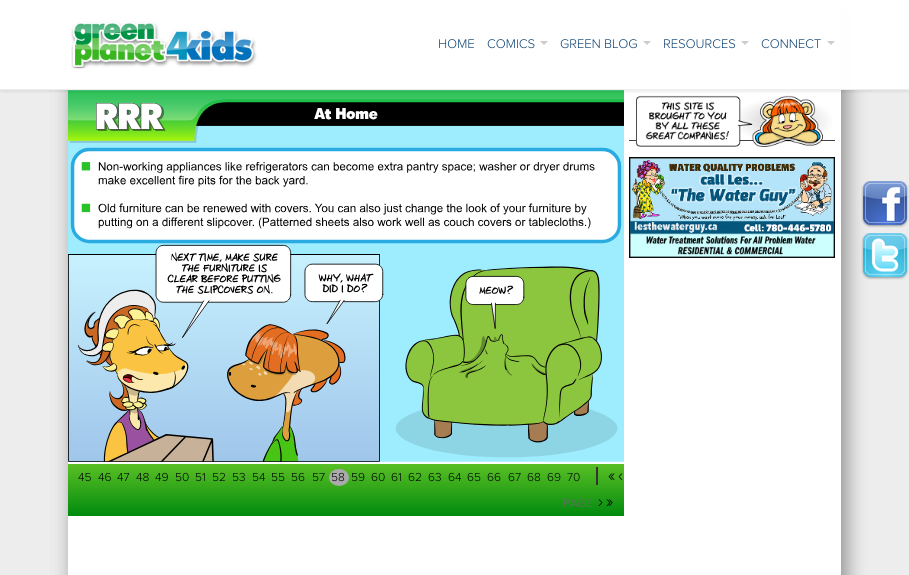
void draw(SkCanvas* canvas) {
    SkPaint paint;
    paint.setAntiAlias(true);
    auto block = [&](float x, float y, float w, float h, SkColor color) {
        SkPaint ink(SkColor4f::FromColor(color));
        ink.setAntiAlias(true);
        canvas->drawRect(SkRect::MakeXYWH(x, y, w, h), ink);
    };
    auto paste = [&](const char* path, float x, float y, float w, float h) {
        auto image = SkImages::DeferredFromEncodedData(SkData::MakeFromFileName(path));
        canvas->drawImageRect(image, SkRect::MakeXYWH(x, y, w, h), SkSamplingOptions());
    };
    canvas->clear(SkColorSetRGB(237, 237, 237));
    paint.setColor(SkColorSetARGB(140, 68, 68, 68));
    paint.setMaskFilter(SkMaskFilter::MakeBlur(kNormal_SkBlurStyle, 9.5f));
    canvas->drawRect(SkRect::MakeXYWH(72, 4, 775, 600), paint);
    paint.setMaskFilter(nullptr);
    block(68, 0, 773, 575, SK_ColorWHITE);
    paste("pic7.png", 68, 90, 556, 372);
    paste("pic39.png", 629, 95, 206, 163);
    canvas->save();
    canvas->clipRect(SkRect::MakeXYWH(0, 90, 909, 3));
    paint.setColor(SkColorSetARGB(26, 0, 0, 0));
    paint.setMaskFilter(SkMaskFilter::MakeBlur(kNormal_SkBlurStyle, 2.5f));
    canvas->drawRect(SkRect::MakeXYWH(0, 1, 909, 90), paint);
    paint.setMaskFilter(nullptr);
    canvas->restore();
    block(0, 0, 909, 89, SkColorSetARGB(250, 255, 255, 255));
    block(52, 89, 815, 1, SkColorSetRGB(238, 238, 238));
    paste("pic1.png", 71, 21, 186, 48);
    paste("pic2.png", 439, 39, 35, 10);
    paste("pic3.png", 487, 39, 48, 10);
    paint.setColor(SkColorSetRGB(204, 204, 204));
    canvas->drawPath(SkPathBuilder().moveTo(540, 41).lineTo(548, 41).lineTo(544, 45).close().detach(), paint);
    paste("pic4.png", 560, 39, 77, 10);
    canvas->drawPath(SkPathBuilder().moveTo(643, 41).lineTo(651, 41).lineTo(647, 45).close().detach(), paint);
    paste("pic5.png", 664, 39, 72, 10);
    canvas->drawPath(SkPathBuilder().moveTo(741, 41).lineTo(749, 41).lineTo(745, 45).close().detach(), paint);
    paste("pic6.png", 761, 39, 60, 10);
    canvas->drawPath(SkPathBuilder().moveTo(827, 41).lineTo(835, 41).lineTo(831, 45).close().detach(), paint);
    {
        const SkColor colors[] = {SkColorSetRGB(89, 191, 36), SkColorSetRGB(46, 165, 25), SkColorSetRGB(0, 138, 14)};
        const float stops[] = {0, 0.51f, 1};
        const SkPoint ends[] = {{346, 464}, {346, 516}};
        paint.setShader(SkGradientShader::MakeLinear(ends, colors, stops, 3, SkTileMode::kClamp));
        paint.setAlpha(255);
    }
    canvas->drawRect(SkRect::MakeXYWH(68, 464, 556, 52), paint);
    paste("pic8.png", 98, 472, 13, 10);
    paste("pic9.png", 136, 472, 13, 10);
    paste("pic10.png", 155, 472, 13, 10);
    paste("pic11.png", 176, 472, 13, 10);
    paste("pic12.png", 213, 472, 12, 10);
    paste("pic13.png", 233, 472, 12, 10);
    paste("pic14.png", 292, 472, 13, 10);
    paint.setShader(nullptr);
    paint.setColor(SkColorSetRGB(170, 170, 170));
    canvas->drawOval(SkRect::MakeXYWH(329, 469, 20, 17), paint);
    block(596, 467, 2, 18, SkColorSetRGB(51, 51, 51));
    paste("pic15.png", 78, 473, 13, 9);
    paste("pic16.png", 117, 473, 13, 8);
    paste("pic17.png", 196, 473, 9, 9);
    paste("pic18.png", 253, 473, 13, 9);
    paste("pic19.png", 272, 473, 13, 9);
    paste("pic20.png", 313, 473, 12, 9);
    paste("pic21.png", 332, 472, 13, 10);
    paste("pic22.png", 352, 472, 13, 10);
    paste("pic23.png", 371, 472, 14, 10);
    paste("pic24.png", 391, 472, 10, 10);
    paste("pic25.png", 408, 472, 13, 10);
    paste("pic26.png", 428, 472, 13, 10);
    paste("pic27.png", 448, 472, 14, 10);
    paste("pic28.png", 467, 472, 14, 10);
    paste("pic29.png", 487, 472, 14, 10);
    paste("pic30.png", 508, 472, 13, 10);
    paste("pic31.png", 527, 472, 14, 10);
    paste("pic32.png", 547, 472, 14, 10);
    paste("pic33.png", 567, 472, 13, 10);
    paste("pic34.png", 608, 473, 7, 7);
    paste("pic35.png", 618, 473, 5, 7);
    paste("pic36.png", 564, 498, 29, 10);
    paste("pic37.png", 598, 499, 5, 7);
    paste("pic38.png", 606, 499, 7, 7);
    paste("pic40.png", 861, 181, 48, 47);
    paste("pic41.png", 861, 233, 48, 47);
}
